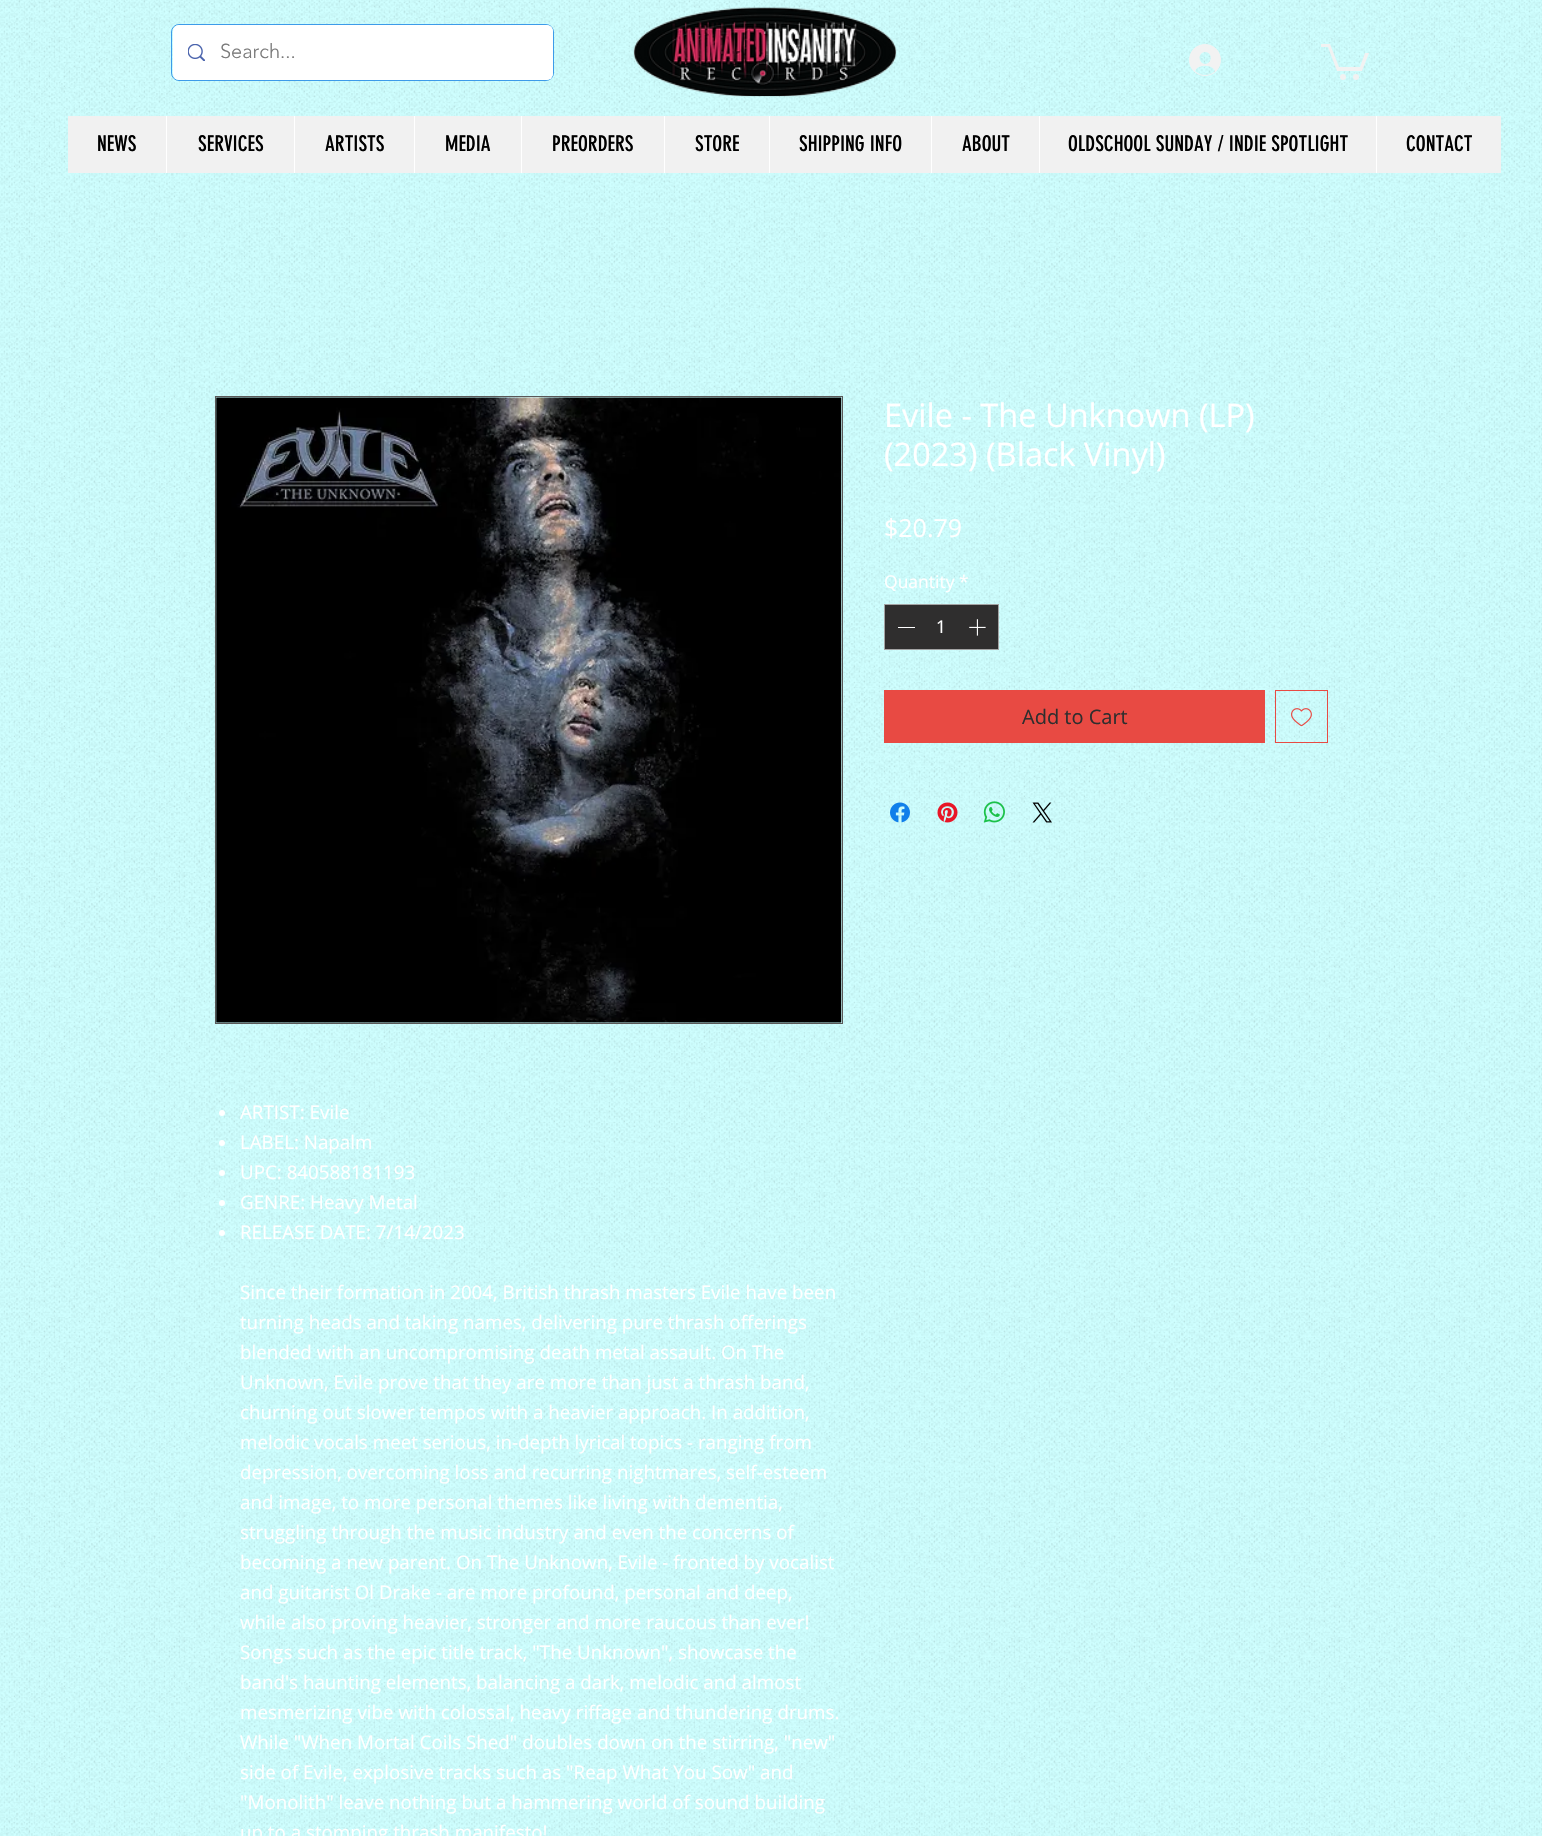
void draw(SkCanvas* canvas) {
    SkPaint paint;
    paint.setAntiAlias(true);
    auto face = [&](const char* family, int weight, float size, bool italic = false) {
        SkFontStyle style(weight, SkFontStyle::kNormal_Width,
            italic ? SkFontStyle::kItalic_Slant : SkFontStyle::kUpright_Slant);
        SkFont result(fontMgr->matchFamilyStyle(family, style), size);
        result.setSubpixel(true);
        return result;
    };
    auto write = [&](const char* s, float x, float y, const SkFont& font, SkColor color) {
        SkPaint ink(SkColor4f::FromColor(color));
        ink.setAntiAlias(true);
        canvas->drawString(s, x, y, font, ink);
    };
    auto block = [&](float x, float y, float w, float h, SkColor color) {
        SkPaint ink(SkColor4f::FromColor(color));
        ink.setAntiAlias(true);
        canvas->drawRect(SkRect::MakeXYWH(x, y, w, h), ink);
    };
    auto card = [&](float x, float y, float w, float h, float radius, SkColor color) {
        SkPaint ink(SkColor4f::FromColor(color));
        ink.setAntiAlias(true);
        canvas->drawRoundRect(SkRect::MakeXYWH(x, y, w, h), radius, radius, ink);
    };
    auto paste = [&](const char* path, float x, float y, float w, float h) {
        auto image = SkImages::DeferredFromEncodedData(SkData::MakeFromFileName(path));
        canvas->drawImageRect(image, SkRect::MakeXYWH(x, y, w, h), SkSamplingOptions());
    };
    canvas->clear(SkColorSetRGB(207, 255, 255));
    paste("pic1.png", 0, 0, 1542, 1836);
    paint.setStyle(SkPaint::kStroke_Style);
    paint.setStrokeWidth(1);
    paint.setColor(SkColorSetRGB(61, 155, 233));
    canvas->drawRoundRect(SkRect::MakeXYWH(171.5f, 24.5f, 382, 56), 7.5f, 7.5f, paint);
    card(173, 25, 380, 55, 6, SK_ColorWHITE);
    paste("pic2.png", 188, 44, 17, 17);
    auto kFont1 = face("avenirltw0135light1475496", 300, 20);
    write("Search...", 220, 58, kFont1, SkColorSetRGB(120, 120, 120));
    paste("pic3.png", 633, 7, 264, 90);
    paste("pic4.png", 1189, 44, 32, 32);
    paint.setStyle(SkPaint::kFill_Style);
    paint.setColor(SkColorSetRGB(242, 242, 242));
    canvas->drawPath(SkPathBuilder().moveTo(1369, 53).lineTo(1362, 71).lineTo(1337, 71).lineTo(1328, 47).lineTo(1321, 47).lineTo(1321, 44).lineTo(1330, 44).lineTo(1339, 67).lineTo(1360, 67).lineTo(1365, 53).detach(), paint);
    canvas->drawCircle(1356, 77, 3, paint);
    canvas->drawCircle(1343, 77, 3, paint);
    block(68, 116, 1433, 57, SkColorSetRGB(241, 241, 241));
    auto kFont2 = face("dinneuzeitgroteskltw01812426", 400, 21.25f);
    write("NEWS", 97, 151, kFont2, SK_ColorBLACK);
    block(166, 116, 1, 57, SK_ColorWHITE);
    write("SERVICES", 198, 151, kFont2, SK_ColorBLACK);
    block(294, 116, 1, 57, SK_ColorWHITE);
    write("ARTISTS", 325, 151, kFont2, SK_ColorBLACK);
    block(414, 116, 1, 57, SK_ColorWHITE);
    write("MEDIA", 445, 151, kFont2, SK_ColorBLACK);
    block(521, 116, 1, 57, SK_ColorWHITE);
    write("PREORDERS", 552, 151, kFont2, SK_ColorBLACK);
    block(664, 116, 1, 57, SK_ColorWHITE);
    write("STORE", 695, 151, kFont2, SK_ColorBLACK);
    block(769, 116, 1, 57, SK_ColorWHITE);
    write("SHIPPING INFO", 799, 151, kFont2, SK_ColorBLACK);
    block(931, 116, 1, 57, SK_ColorWHITE);
    write("ABOUT", 962, 151, kFont2, SK_ColorBLACK);
    block(1039, 116, 1, 57, SK_ColorWHITE);
    write("OLDSCHOOL SUNDAY / INDIE SPOTLIGHT", 1068, 151, kFont2, SK_ColorBLACK);
    block(1376, 116, 1, 57, SK_ColorWHITE);
    write("CONTACT", 1406, 151, kFont2, SK_ColorBLACK);
    auto kFont3 = face("Open Sans", 400, 32.5f);
    write("Evile - The Unknown (LP)", 884, 427, kFont3, SK_ColorWHITE);
    write("(2023) (Black Vinyl)", 884, 466, kFont3, SK_ColorWHITE);
    auto kFont4 = face("Open Sans", 400, 25);
    write("$20.79", 884, 537, kFont4, SK_ColorWHITE);
    auto kFont5 = face("Open Sans", 400, 17.5f);
    write("Quantity", 884, 588, kFont5, SK_ColorWHITE);
    write("*", 959, 588, kFont5, SK_ColorWHITE);
    paint.setColor(SkColorSetRGB(47, 46, 46));
    canvas->drawRect(SkRect::MakeXYWH(884.5f, 604.5f, 114, 45), paint);
    paint.setStyle(SkPaint::kStroke_Style);
    paint.setColor(SkColorSetRGB(164, 164, 164));
    canvas->drawRect(SkRect::MakeXYWH(884.5f, 604.5f, 114, 45), paint);
    block(898, 627, 17, 1, SK_ColorWHITE);
    write("1", 936, 633, kFont5, SK_ColorWHITE);
    paste("pic5.png", 969, 619, 17, 17);
    block(884, 690, 381, 53, SkColorSetRGB(232, 74, 67));
    auto kFont6 = face("Open Sans", 400, 20);
    write("Add to Cart", 1022, 724, kFont6, SkColorSetRGB(47, 46, 46));
    paint.setColor(SkColorSetRGB(232, 74, 67));
    canvas->drawRect(SkRect::MakeXYWH(1275.5f, 690.5f, 52, 52), paint);
    paste("pic6.png", 1291, 708, 21, 19);
    paste("pic7.png", 890, 802, 20, 21);
    paste("pic8.png", 937, 802, 21, 21);
    paste("pic9.png", 983, 801, 22, 22);
    paste("pic10.png", 1032, 802, 20, 21);
    paint.setColor(SkColorSetRGB(89, 88, 88));
    canvas->drawRect(SkRect::MakeXYWH(215.5f, 396.5f, 627, 627), paint);
    paste("pic11.png", 216, 397, 626, 626);
    paint.setStyle(SkPaint::kFill_Style);
    paint.setColor(SK_ColorWHITE);
    canvas->drawCircle(222, 1113, 3, paint);
    auto kFont7 = face("Open Sans", 400, 18.75f);
    write("ARTIST: Evile", 240, 1119, kFont7, SK_ColorWHITE);
    canvas->drawCircle(222, 1143, 3, paint);
    write("LABEL: Napalm", 240, 1149, kFont7, SK_ColorWHITE);
    canvas->drawCircle(222, 1173, 3, paint);
    write("UPC: 840588181193", 240, 1179, kFont7, SK_ColorWHITE);
    canvas->drawCircle(222, 1203, 3, paint);
    write("GENRE: Heavy Metal", 240, 1209, kFont7, SK_ColorWHITE);
    canvas->drawCircle(222, 1233, 3, paint);
    write("RELEASE DATE: 7/14/2023", 240, 1239, kFont7, SK_ColorWHITE);
    write("Since their formation in 2004, British thrash masters Evile have been", 240, 1299, kFont7, SK_ColorWHITE);
    write("turning heads and taking names, delivering pure thrash offerings", 240, 1329, kFont7, SK_ColorWHITE);
    write("blended with an uncompromising death metal assault. On The", 240, 1359, kFont7, SK_ColorWHITE);
    write("Unknown, Evile prove that they are more than just a thrash band,", 240, 1389, kFont7, SK_ColorWHITE);
    write("churning out slower tempos with a heavier approach. In addition,", 240, 1419, kFont7, SK_ColorWHITE);
    write("melodic vocals meet serious, in-depth lyrical topics - ranging from", 240, 1449, kFont7, SK_ColorWHITE);
    write("depression, overcoming loss and recurring nightmares, self-esteem", 240, 1479, kFont7, SK_ColorWHITE);
    write("and image, to more personal themes like living with dementia,", 240, 1509, kFont7, SK_ColorWHITE);
    write("struggling through the music industry and even the concerns of", 240, 1539, kFont7, SK_ColorWHITE);
    write("becoming a new parent. On The Unknown, Evile - fronted by vocalist", 240, 1569, kFont7, SK_ColorWHITE);
    write("and guitarist Ol Drake - are more profound, personal and deep,", 240, 1599, kFont7, SK_ColorWHITE);
    write("while also proving heavier, stronger and more raucous than ever!", 240, 1629, kFont7, SK_ColorWHITE);
    write("Songs such as the epic title track, \"The Unknown\", showcase the", 240, 1659, kFont7, SK_ColorWHITE);
    write("band's haunting elements, balancing a dark, melodic and almost", 240, 1689, kFont7, SK_ColorWHITE);
    write("mesmerizing vibe with colossal, heavy riffage and thundering drums.", 240, 1719, kFont7, SK_ColorWHITE);
    write("While \"When Mortal Coils Shed\" doubles down on the stirring, \"new\"", 240, 1749, kFont7, SK_ColorWHITE);
    write("side of Evile, explosive tracks such as \"Reap What You Sow\" and", 240, 1779, kFont7, SK_ColorWHITE);
    write("\"Monolith\" leave nothing but a hammering world of sound building", 240, 1809, kFont7, SK_ColorWHITE);
    write("up to a stomping thrash manifesto!", 240, 1839, kFont7, SK_ColorWHITE);
}
